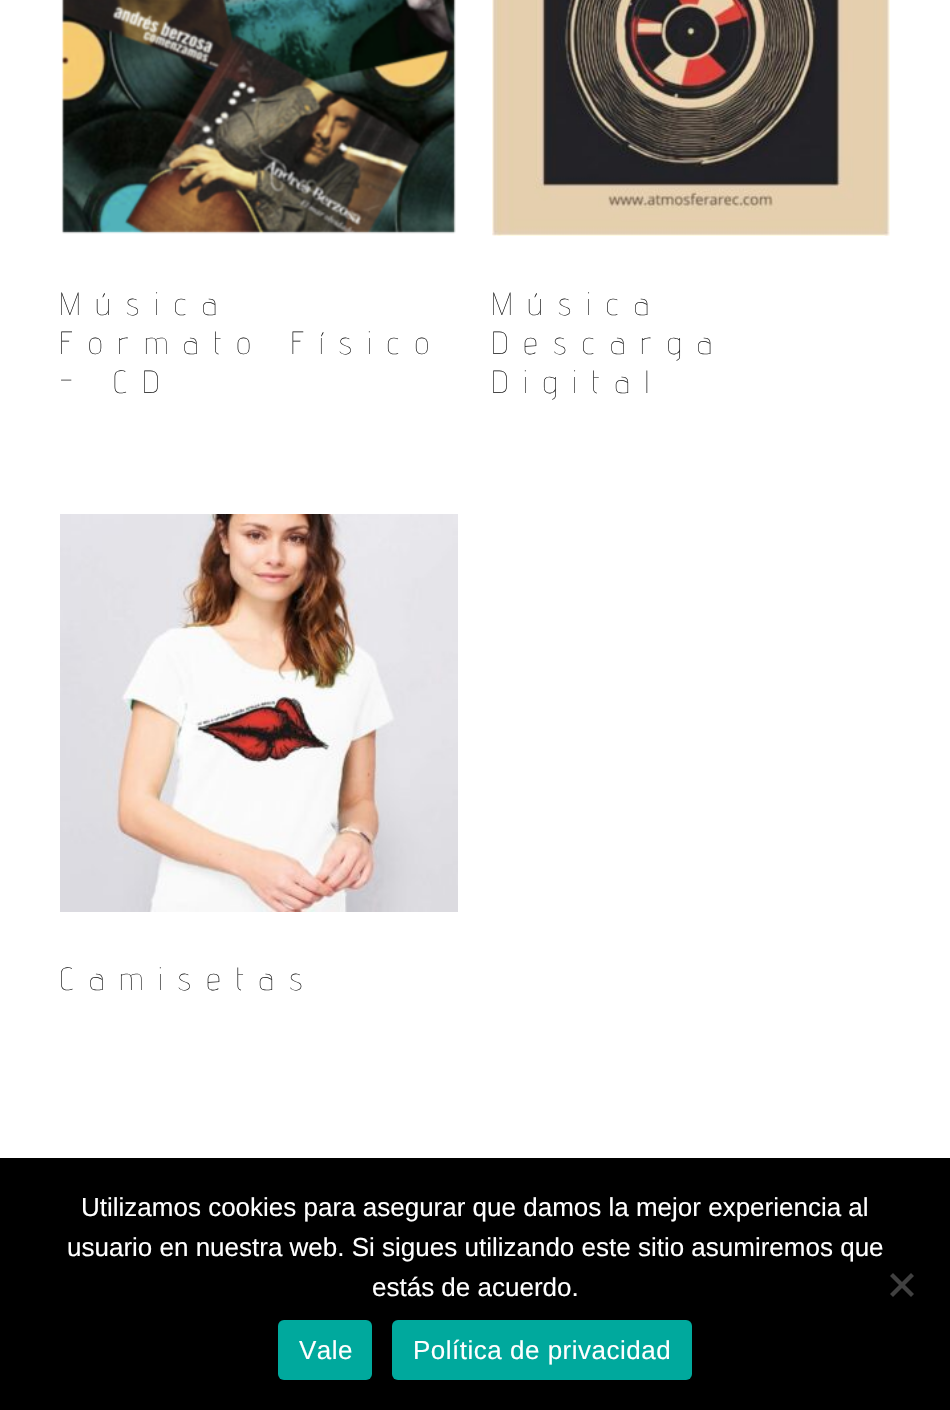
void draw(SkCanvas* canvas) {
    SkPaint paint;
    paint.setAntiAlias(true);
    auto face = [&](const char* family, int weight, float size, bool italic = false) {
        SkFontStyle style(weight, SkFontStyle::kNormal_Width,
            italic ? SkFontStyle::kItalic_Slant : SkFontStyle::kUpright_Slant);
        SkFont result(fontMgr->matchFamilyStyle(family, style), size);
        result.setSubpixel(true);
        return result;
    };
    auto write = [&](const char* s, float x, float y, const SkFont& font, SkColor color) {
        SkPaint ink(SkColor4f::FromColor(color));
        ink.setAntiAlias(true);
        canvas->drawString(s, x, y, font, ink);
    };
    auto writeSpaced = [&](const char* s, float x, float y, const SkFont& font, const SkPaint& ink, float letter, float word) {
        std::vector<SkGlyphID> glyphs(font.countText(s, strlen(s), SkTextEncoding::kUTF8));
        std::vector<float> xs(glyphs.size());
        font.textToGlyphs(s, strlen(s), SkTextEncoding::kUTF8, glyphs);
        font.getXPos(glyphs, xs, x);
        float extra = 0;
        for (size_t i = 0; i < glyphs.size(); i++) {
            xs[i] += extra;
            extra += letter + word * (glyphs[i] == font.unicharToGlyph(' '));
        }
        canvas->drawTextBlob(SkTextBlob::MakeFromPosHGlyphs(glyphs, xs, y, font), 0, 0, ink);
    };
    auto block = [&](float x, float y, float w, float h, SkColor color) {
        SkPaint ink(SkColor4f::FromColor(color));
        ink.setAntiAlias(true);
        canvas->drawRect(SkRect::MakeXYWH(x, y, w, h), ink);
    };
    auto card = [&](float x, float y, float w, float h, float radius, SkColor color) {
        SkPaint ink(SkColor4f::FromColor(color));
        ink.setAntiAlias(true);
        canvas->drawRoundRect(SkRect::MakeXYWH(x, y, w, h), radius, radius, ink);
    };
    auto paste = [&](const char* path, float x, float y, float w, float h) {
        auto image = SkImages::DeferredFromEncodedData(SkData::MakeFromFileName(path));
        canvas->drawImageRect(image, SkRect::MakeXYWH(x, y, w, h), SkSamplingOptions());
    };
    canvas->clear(SK_ColorWHITE);
    paste("pic1.png", 61, 0, 395, 234);
    auto kFont1 = face("Advent Pro", 100, 32);
    paint.setColor(SkColorSetRGB(33, 33, 33));
    writeSpaced("Música", 60, 315, kFont1, paint, 16, 0);
    writeSpaced("Formato Físico", 60, 354, kFont1, paint, 16, 0);
    writeSpaced("- CD", 60, 393, kFont1, paint, 16, 0);
    paste("pic2.png", 492, 0, 398, 236);
    writeSpaced("Música", 492, 315, kFont1, paint, 16, 0);
    writeSpaced("Descarga", 492, 354, kFont1, paint, 16, 0);
    writeSpaced("Digital", 492, 393, kFont1, paint, 16, 0);
    paste("pic3.png", 60, 514, 398, 398);
    writeSpaced("Camisetas", 60, 990, kFont1, paint, 16, 0);
    block(0, 1158, 950, 252, SK_ColorBLACK);
    auto kFont2 = face("Liberation Sans", 400, 26);
    write("Utilizamos cookies para asegurar que damos la mejor experiencia al", 81, 1216, kFont2, SK_ColorWHITE);
    write("usuario en nuestra web. Si sigues utilizando este sitio asumiremos que", 67, 1256, kFont2, SK_ColorWHITE);
    write("estás de acuerdo.", 372, 1296, kFont2, SK_ColorWHITE);
    paint.setColor(SkColorSetRGB(64, 64, 64));
    canvas->drawPath(SkPathBuilder().moveTo(911, 1273).lineTo(914, 1276).lineTo(893, 1297).lineTo(890, 1294).close().detach(), paint);
    canvas->drawPath(SkPathBuilder().moveTo(890, 1276).lineTo(893, 1273).lineTo(914, 1294).lineTo(911, 1297).close().detach(), paint);
    card(278, 1320, 94, 60, 6, SkColorSetRGB(0, 169, 157));
    paint.setColor(SK_ColorWHITE);
    writeSpaced("Vale", 299, 1359, kFont2, paint, 0.5f, 0);
    card(392, 1320, 300, 60, 6, SkColorSetRGB(0, 169, 157));
    writeSpaced("Política de privacidad", 413, 1359, kFont2, paint, 0.5f, 0);
}
